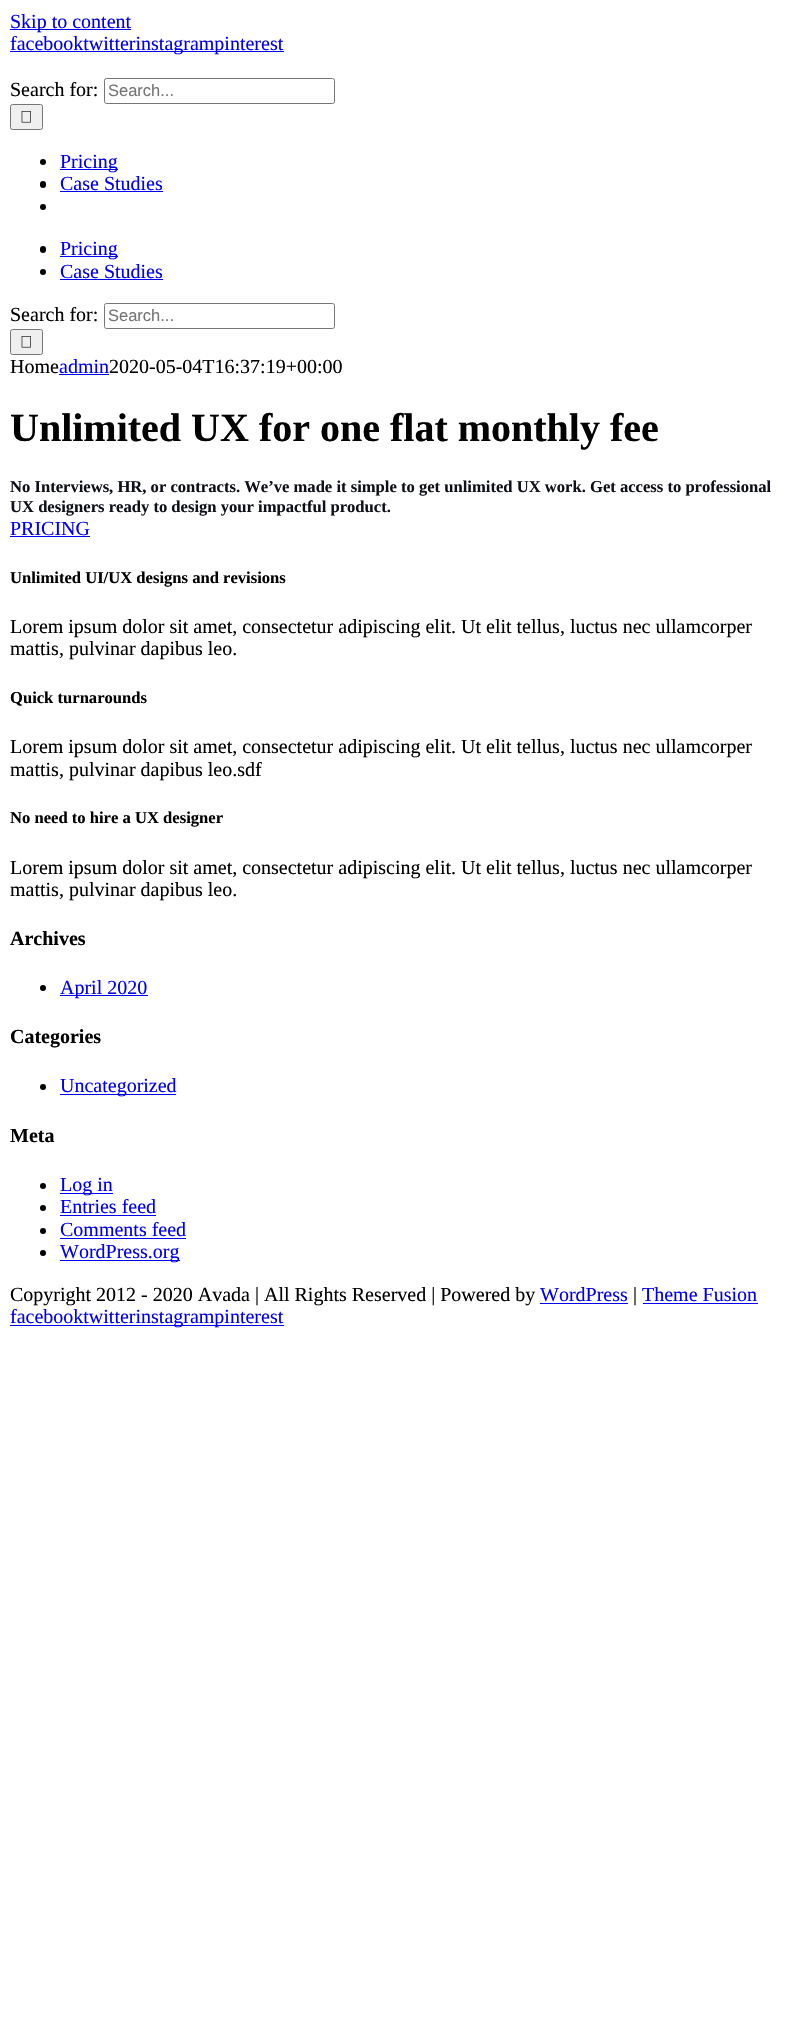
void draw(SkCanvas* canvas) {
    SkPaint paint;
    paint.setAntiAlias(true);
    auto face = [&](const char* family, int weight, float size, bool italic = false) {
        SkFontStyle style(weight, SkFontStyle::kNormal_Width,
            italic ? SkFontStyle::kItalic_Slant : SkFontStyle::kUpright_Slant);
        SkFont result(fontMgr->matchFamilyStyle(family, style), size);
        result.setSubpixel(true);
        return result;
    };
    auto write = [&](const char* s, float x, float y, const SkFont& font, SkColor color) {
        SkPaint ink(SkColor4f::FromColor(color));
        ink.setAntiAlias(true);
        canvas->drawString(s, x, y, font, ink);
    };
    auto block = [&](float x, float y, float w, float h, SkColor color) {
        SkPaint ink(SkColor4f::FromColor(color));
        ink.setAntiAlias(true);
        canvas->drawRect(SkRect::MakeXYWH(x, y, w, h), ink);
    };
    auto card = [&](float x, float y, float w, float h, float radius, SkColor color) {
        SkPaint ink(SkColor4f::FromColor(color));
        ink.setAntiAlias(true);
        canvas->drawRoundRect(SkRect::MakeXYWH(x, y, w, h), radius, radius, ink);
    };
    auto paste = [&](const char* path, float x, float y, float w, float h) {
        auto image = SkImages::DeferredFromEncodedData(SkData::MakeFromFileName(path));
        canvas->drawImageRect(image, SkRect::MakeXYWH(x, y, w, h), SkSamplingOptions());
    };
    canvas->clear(SK_ColorWHITE);
    block(10, 29, 121, 1, SkColorSetRGB(0, 0, 238));
    auto kFont1 = face("Liberation Serif", 400, 20);
    write("Skip to content", 10, 28, kFont1, SkColorSetRGB(0, 0, 238));
    block(10, 51, 274, 1, SkColorSetRGB(0, 0, 238));
    write("facebooktwitterinstagrampinterest", 10, 50, kFont1, SkColorSetRGB(0, 0, 238));
    write("Search for:", 10, 96, kFont1, SK_ColorBLACK);
    paint.setStyle(SkPaint::kStroke_Style);
    paint.setStrokeWidth(1);
    paint.setColor(SkColorSetRGB(118, 118, 118));
    canvas->drawRoundRect(SkRect::MakeXYWH(104.5f, 78.5f, 230, 25), 2, 2, paint);
    auto kFont2 = face("Liberation Sans", 400, 16.5f);
    write("Search...", 108, 96, kFont2, SkColorSetRGB(117, 117, 117));
    paint.setStyle(SkPaint::kFill_Style);
    paint.setColor(SkColorSetRGB(239, 239, 239));
    canvas->drawRoundRect(SkRect::MakeXYWH(10.5f, 104.5f, 32, 25), 2, 2, paint);
    paint.setStyle(SkPaint::kStroke_Style);
    paint.setColor(SkColorSetRGB(118, 118, 118));
    canvas->drawRoundRect(SkRect::MakeXYWH(10.5f, 104.5f, 32, 25), 2, 2, paint);
    paste("pic1.png", 21, 111, 10, 12);
    paint.setStyle(SkPaint::kFill_Style);
    paint.setColor(SK_ColorBLACK);
    canvas->drawCircle(43, 162, 3, paint);
    block(60, 169, 58, 1, SkColorSetRGB(0, 0, 238));
    write("Pricing", 60, 168, kFont1, SkColorSetRGB(0, 0, 238));
    card(40, 181, 6, 7, 3, SK_ColorBLACK);
    write("Case Studies", 60, 190, kFont1, SkColorSetRGB(0, 0, 238));
    block(60, 191, 103, 1, SkColorSetRGB(0, 0, 238));
    canvas->drawCircle(43, 207, 3, paint);
    card(40, 246, 6, 7, 3, SK_ColorBLACK);
    block(60, 256, 58, 1, SkColorSetRGB(0, 0, 238));
    write("Pricing", 60, 255, kFont1, SkColorSetRGB(0, 0, 238));
    canvas->drawCircle(43, 272, 3, paint);
    write("Case Studies", 60, 278, kFont1, SkColorSetRGB(0, 0, 238));
    block(60, 279, 103, 1, SkColorSetRGB(0, 0, 238));
    write("Search for:", 10, 321, kFont1, SK_ColorBLACK);
    paint.setStyle(SkPaint::kStroke_Style);
    paint.setColor(SkColorSetRGB(118, 118, 118));
    canvas->drawRoundRect(SkRect::MakeXYWH(104.5f, 303.5f, 230, 25), 2, 2, paint);
    write("Search...", 108, 321, kFont2, SkColorSetRGB(117, 117, 117));
    paint.setStyle(SkPaint::kFill_Style);
    paint.setColor(SkColorSetRGB(239, 239, 239));
    canvas->drawRoundRect(SkRect::MakeXYWH(10.5f, 329.5f, 32, 25), 2, 2, paint);
    paint.setStyle(SkPaint::kStroke_Style);
    paint.setColor(SkColorSetRGB(118, 118, 118));
    canvas->drawRoundRect(SkRect::MakeXYWH(10.5f, 329.5f, 32, 25), 2, 2, paint);
    paste("pic1.png", 21, 336, 10, 12);
    write("Home", 10, 373, kFont1, SK_ColorBLACK);
    write("admin", 59, 373, kFont1, SkColorSetRGB(0, 0, 238));
    block(59, 374, 50, 1, SkColorSetRGB(0, 0, 238));
    write("2020-05-04T16:37:19+00:00", 109, 373, kFont1, SK_ColorBLACK);
    auto kFont3 = face("Liberation Serif", 700, 40);
    write("Unlimited UX for one flat monthly fee", 10, 441, kFont3, SK_ColorBLACK);
    auto kFont4 = face("Liberation Serif", 700, 16.6f);
    write("No Interviews, HR, or contracts. We’ve made it simple to get unlimited UX work. Get access to professional", 10, 492, kFont4, SkColorSetRGB(14, 16, 26));
    write("UX designers ready to design your impactful product.", 10, 512, kFont4, SkColorSetRGB(14, 16, 26));
    write("PRICING", 10, 535, kFont1, SkColorSetRGB(0, 0, 238));
    block(10, 536, 80, 1, SkColorSetRGB(0, 0, 238));
    write("Unlimited UI/UX designs and revisions", 10, 583, kFont4, SK_ColorBLACK);
    write("Lorem ipsum dolor sit amet, consectetur adipiscing elit. Ut elit tellus, luctus nec ullamcorper", 10, 633, kFont1, SK_ColorBLACK);
    write("mattis, pulvinar dapibus leo.", 10, 655, kFont1, SK_ColorBLACK);
    write("Quick turnarounds", 10, 703, kFont4, SK_ColorBLACK);
    write("Lorem ipsum dolor sit amet, consectetur adipiscing elit. Ut elit tellus, luctus nec ullamcorper", 10, 753, kFont1, SK_ColorBLACK);
    write("mattis, pulvinar dapibus leo.sdf", 10, 776, kFont1, SK_ColorBLACK);
    write("No need to hire a UX designer", 10, 823, kFont4, SK_ColorBLACK);
    write("Lorem ipsum dolor sit amet, consectetur adipiscing elit. Ut elit tellus, luctus nec ullamcorper", 10, 874, kFont1, SK_ColorBLACK);
    write("mattis, pulvinar dapibus leo.", 10, 896, kFont1, SK_ColorBLACK);
    auto kFont5 = face("Liberation Serif", 700, 20);
    write("Archives", 10, 945, kFont5, SK_ColorBLACK);
    paint.setStyle(SkPaint::kFill_Style);
    paint.setColor(SK_ColorBLACK);
    canvas->drawCircle(43, 988, 3, paint);
    block(60, 995, 88, 1, SkColorSetRGB(0, 0, 238));
    write("April 2020", 60, 994, kFont1, SkColorSetRGB(0, 0, 238));
    write("Categories", 10, 1043, kFont5, SK_ColorBLACK);
    canvas->drawCircle(43, 1087, 3, paint);
    block(60, 1094, 116, 1, SkColorSetRGB(0, 0, 238));
    write("Uncategorized", 60, 1092, kFont1, SkColorSetRGB(0, 0, 238));
    write("Meta", 10, 1142, kFont5, SK_ColorBLACK);
    canvas->drawCircle(43, 1186, 3, paint);
    block(60, 1193, 53, 1, SkColorSetRGB(0, 0, 238));
    write("Log in", 60, 1191, kFont1, SkColorSetRGB(0, 0, 238));
    canvas->drawCircle(43, 1208, 3, paint);
    write("Entries feed", 60, 1213, kFont1, SkColorSetRGB(0, 0, 238));
    block(60, 1215, 96, 1, SkColorSetRGB(0, 0, 238));
    canvas->drawCircle(43, 1231, 3, paint);
    write("Comments feed", 60, 1236, kFont1, SkColorSetRGB(0, 0, 238));
    block(60, 1238, 126, 1, SkColorSetRGB(0, 0, 238));
    canvas->drawCircle(43, 1253, 3, paint);
    block(60, 1260, 120, 1, SkColorSetRGB(0, 0, 238));
    write("WordPress.org", 60, 1258, kFont1, SkColorSetRGB(0, 0, 238));
    write("Copyright 2012 - 2020 Avada | All Rights Reserved | Powered by", 10, 1301, kFont1, SK_ColorBLACK);
    write("WordPress", 540, 1301, kFont1, SkColorSetRGB(0, 0, 238));
    block(540, 1303, 88, 1, SkColorSetRGB(0, 0, 238));
    write("|", 633, 1301, kFont1, SK_ColorBLACK);
    write("Theme Fusion", 642, 1301, kFont1, SkColorSetRGB(0, 0, 238));
    block(643, 1303, 115, 1, SkColorSetRGB(0, 0, 238));
    block(10, 1325, 274, 1, SkColorSetRGB(0, 0, 238));
    write("facebooktwitterinstagrampinterest", 10, 1323, kFont1, SkColorSetRGB(0, 0, 238));
}
